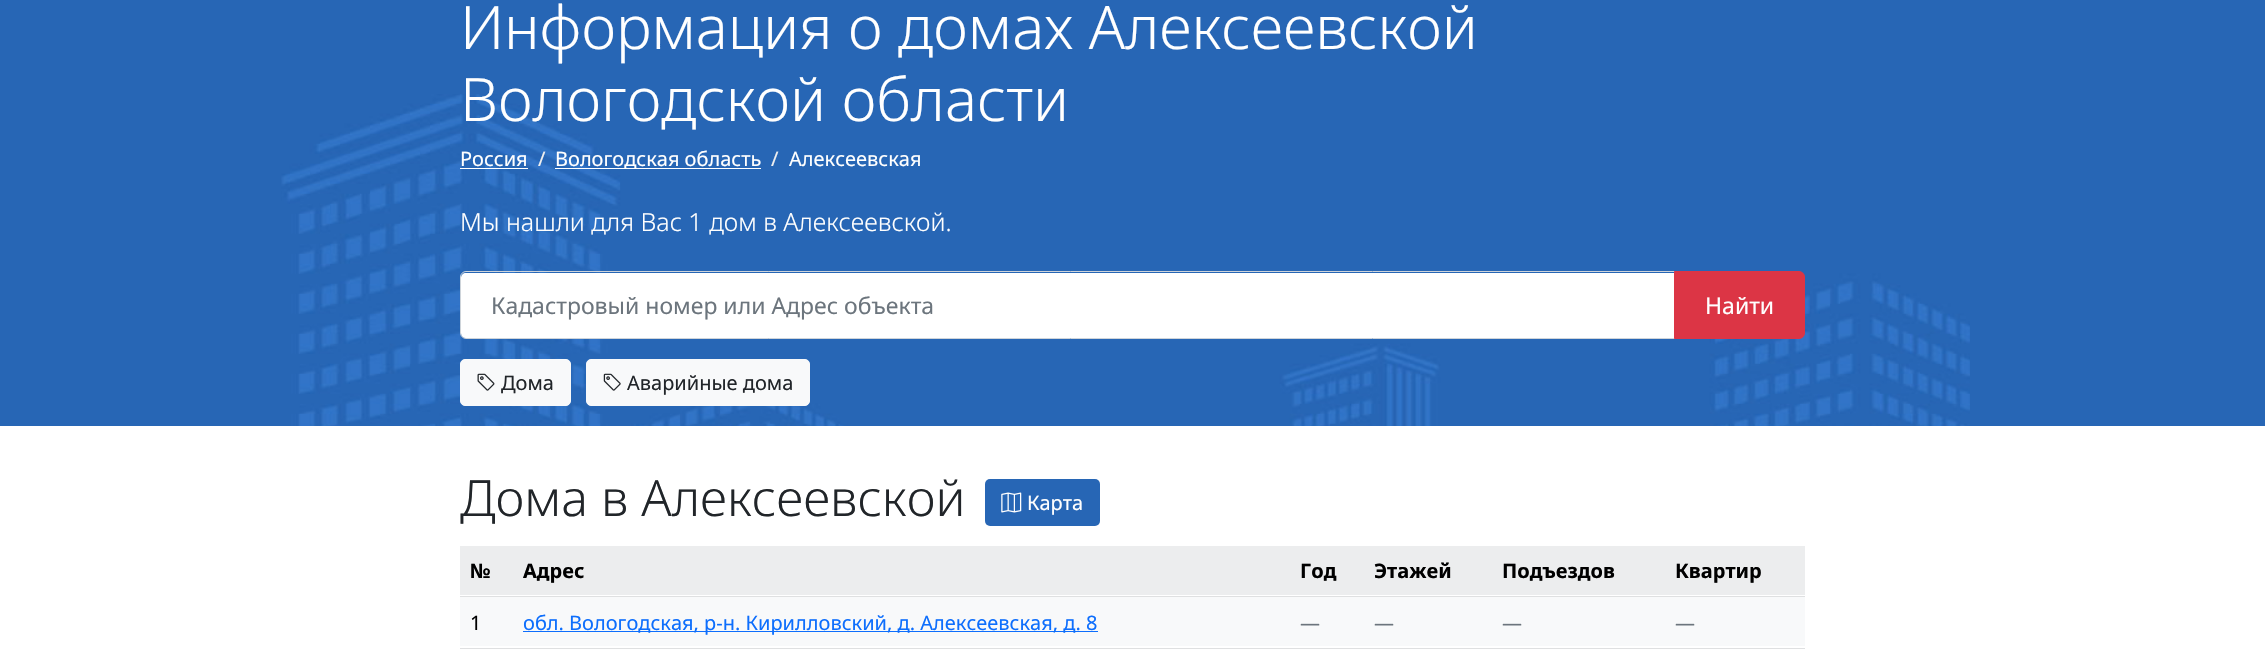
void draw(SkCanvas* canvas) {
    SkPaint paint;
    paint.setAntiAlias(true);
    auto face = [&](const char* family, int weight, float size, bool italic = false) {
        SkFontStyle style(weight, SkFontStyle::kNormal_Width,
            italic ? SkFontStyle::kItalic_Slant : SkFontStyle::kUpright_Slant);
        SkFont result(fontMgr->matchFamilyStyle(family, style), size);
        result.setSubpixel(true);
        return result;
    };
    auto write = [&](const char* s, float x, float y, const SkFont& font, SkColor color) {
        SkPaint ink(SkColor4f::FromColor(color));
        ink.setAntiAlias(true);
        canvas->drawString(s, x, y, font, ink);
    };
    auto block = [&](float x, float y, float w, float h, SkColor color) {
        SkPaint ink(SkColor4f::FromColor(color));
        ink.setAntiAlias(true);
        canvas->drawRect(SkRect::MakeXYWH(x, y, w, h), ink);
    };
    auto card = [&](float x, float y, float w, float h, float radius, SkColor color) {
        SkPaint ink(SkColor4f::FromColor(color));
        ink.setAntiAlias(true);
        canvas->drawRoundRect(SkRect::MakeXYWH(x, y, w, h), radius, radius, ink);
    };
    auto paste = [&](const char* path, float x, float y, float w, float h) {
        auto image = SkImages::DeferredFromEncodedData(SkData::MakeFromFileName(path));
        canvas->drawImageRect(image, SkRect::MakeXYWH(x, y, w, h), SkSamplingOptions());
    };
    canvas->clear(SK_ColorWHITE);
    block(0, 0, 2265, 426, SkColorSetRGB(39, 102, 181));
    paste("pic1.png", 281, 94, 1689, 332);
    auto kFont1 = face("Noto Sans", 300, 60);
    write("Информация о домах Алексеевской", 460, 49, kFont1, SK_ColorWHITE);
    write("Вологодской области", 460, 121, kFont1, SK_ColorWHITE);
    auto kFont2 = face("Noto Sans", 400, 20);
    write("Россия", 460, 166, kFont2, SK_ColorWHITE);
    block(460, 168, 68, 1, SK_ColorWHITE);
    write("/", 538, 166, kFont2, SkColorSetRGB(240, 240, 240));
    block(555, 168, 206, 1, SK_ColorWHITE);
    write("Вологодская область", 555, 166, kFont2, SK_ColorWHITE);
    write("/", 771, 166, kFont2, SkColorSetRGB(240, 240, 240));
    write("Алексеевская", 789, 166, kFont2, SK_ColorWHITE);
    auto kFont3 = face("Noto Sans", 300, 25);
    write("Мы нашли для Вас 1 дом в Алексеевской.", 460, 231, kFont3, SK_ColorWHITE);
    paint.setColor(SK_ColorWHITE);
    canvas->drawPath(SkPathBuilder().moveTo(466, 273).lineTo(1674, 273).lineTo(1674, 338).lineTo(466, 338).cubicTo(463, 338, 461, 336, 461, 333).lineTo(461, 278).cubicTo(461, 275, 463, 273, 466, 273).close().detach(), paint);
    paint.setStyle(SkPaint::kStroke_Style);
    paint.setStrokeWidth(1);
    paint.setColor(SkColorSetRGB(206, 212, 218));
    canvas->drawPath(SkPathBuilder().moveTo(466, 271.5f).lineTo(1674.5f, 271.5f).lineTo(1674.5f, 338.5f).lineTo(466, 338.5f).cubicTo(463, 338.5f, 460.5f, 336, 460.5f, 333).lineTo(460.5f, 277).cubicTo(460.5f, 274, 463, 271.5f, 466, 271.5f).close().detach(), paint);
    auto kFont4 = face("Noto Sans", 400, 23);
    write("Кадастровый номер или Адрес объекта", 491, 314, kFont4, SkColorSetRGB(108, 117, 125));
    paint.setStyle(SkPaint::kFill_Style);
    paint.setColor(SkColorSetRGB(220, 53, 69));
    canvas->drawPath(SkPathBuilder().moveTo(1674.5f, 271.5f).lineTo(1799, 271.5f).cubicTo(1802, 271.5f, 1804.5f, 274, 1804.5f, 277).lineTo(1804.5f, 333).cubicTo(1804.5f, 336, 1802, 338.5f, 1799, 338.5f).lineTo(1674.5f, 338.5f).close().detach(), paint);
    paint.setStyle(SkPaint::kStroke_Style);
    canvas->drawPath(SkPathBuilder().moveTo(1674.5f, 271.5f).lineTo(1799, 271.5f).cubicTo(1802, 271.5f, 1804.5f, 274, 1804.5f, 277).lineTo(1804.5f, 333).cubicTo(1804.5f, 336, 1802, 338.5f, 1799, 338.5f).lineTo(1674.5f, 338.5f).close().detach(), paint);
    write("Найти", 1705, 314, kFont4, SK_ColorWHITE);
    paint.setStyle(SkPaint::kFill_Style);
    paint.setColor(SkColorSetRGB(248, 249, 250));
    canvas->drawRoundRect(SkRect::MakeXYWH(460.5f, 359.5f, 110, 46), 4.5f, 4.5f, paint);
    paint.setStyle(SkPaint::kStroke_Style);
    canvas->drawRoundRect(SkRect::MakeXYWH(460.5f, 359.5f, 110, 46), 4.5f, 4.5f, paint);
    paste("pic2.png", 477, 373, 18, 18);
    write("Дома", 501, 390, kFont2, SkColorSetRGB(33, 37, 41));
    paint.setStyle(SkPaint::kFill_Style);
    canvas->drawRoundRect(SkRect::MakeXYWH(586.5f, 359.5f, 223, 46), 4.5f, 4.5f, paint);
    paint.setStyle(SkPaint::kStroke_Style);
    canvas->drawRoundRect(SkRect::MakeXYWH(586.5f, 359.5f, 223, 46), 4.5f, 4.5f, paint);
    paste("pic3.png", 603, 373, 18, 18);
    write("Аварийные дома", 627, 390, kFont2, SkColorSetRGB(33, 37, 41));
    auto kFont5 = face("Noto Sans", 300, 50);
    write("Дома в Алексеевской", 460, 516, kFont5, SkColorSetRGB(33, 37, 41));
    card(985, 479, 115, 47, 5, SkColorSetRGB(39, 102, 181));
    paste("pic4.png", 1001, 492, 21, 21);
    write("Карта", 1027, 510, kFont2, SK_ColorWHITE);
    block(460, 546, 1345, 49, SkColorSetRGB(236, 237, 238));
    auto kFont6 = face("Noto Sans", 700, 20);
    write("№", 470, 578, kFont6, SK_ColorBLACK);
    write("Адрес", 523, 578, kFont6, SK_ColorBLACK);
    write("Год", 1300, 578, kFont6, SK_ColorBLACK);
    write("Этажей", 1374, 578, kFont6, SK_ColorBLACK);
    write("Подъездов", 1502, 578, kFont6, SK_ColorBLACK);
    block(460, 596, 1345, 1, SkColorSetRGB(223, 224, 225));
    write("Квартир", 1675, 578, kFont6, SK_ColorBLACK);
    block(460, 597, 1345, 49, SkColorSetRGB(248, 249, 250));
    write("1", 470, 630, kFont2, SK_ColorBLACK);
    block(523, 631, 575, 1, SkColorSetRGB(13, 110, 253));
    write("обл. Вологодская, р-н. Кирилловский, д. Алексеевская, д. 8", 523, 630, kFont2, SkColorSetRGB(13, 110, 253));
    write("—", 1300, 630, kFont2, SkColorSetRGB(108, 117, 125));
    write("—", 1374, 630, kFont2, SkColorSetRGB(108, 117, 125));
    write("—", 1502, 630, kFont2, SkColorSetRGB(108, 117, 125));
    block(460, 648, 1345, 1, SkColorSetRGB(223, 224, 225));
    write("—", 1675, 630, kFont2, SkColorSetRGB(108, 117, 125));
}
